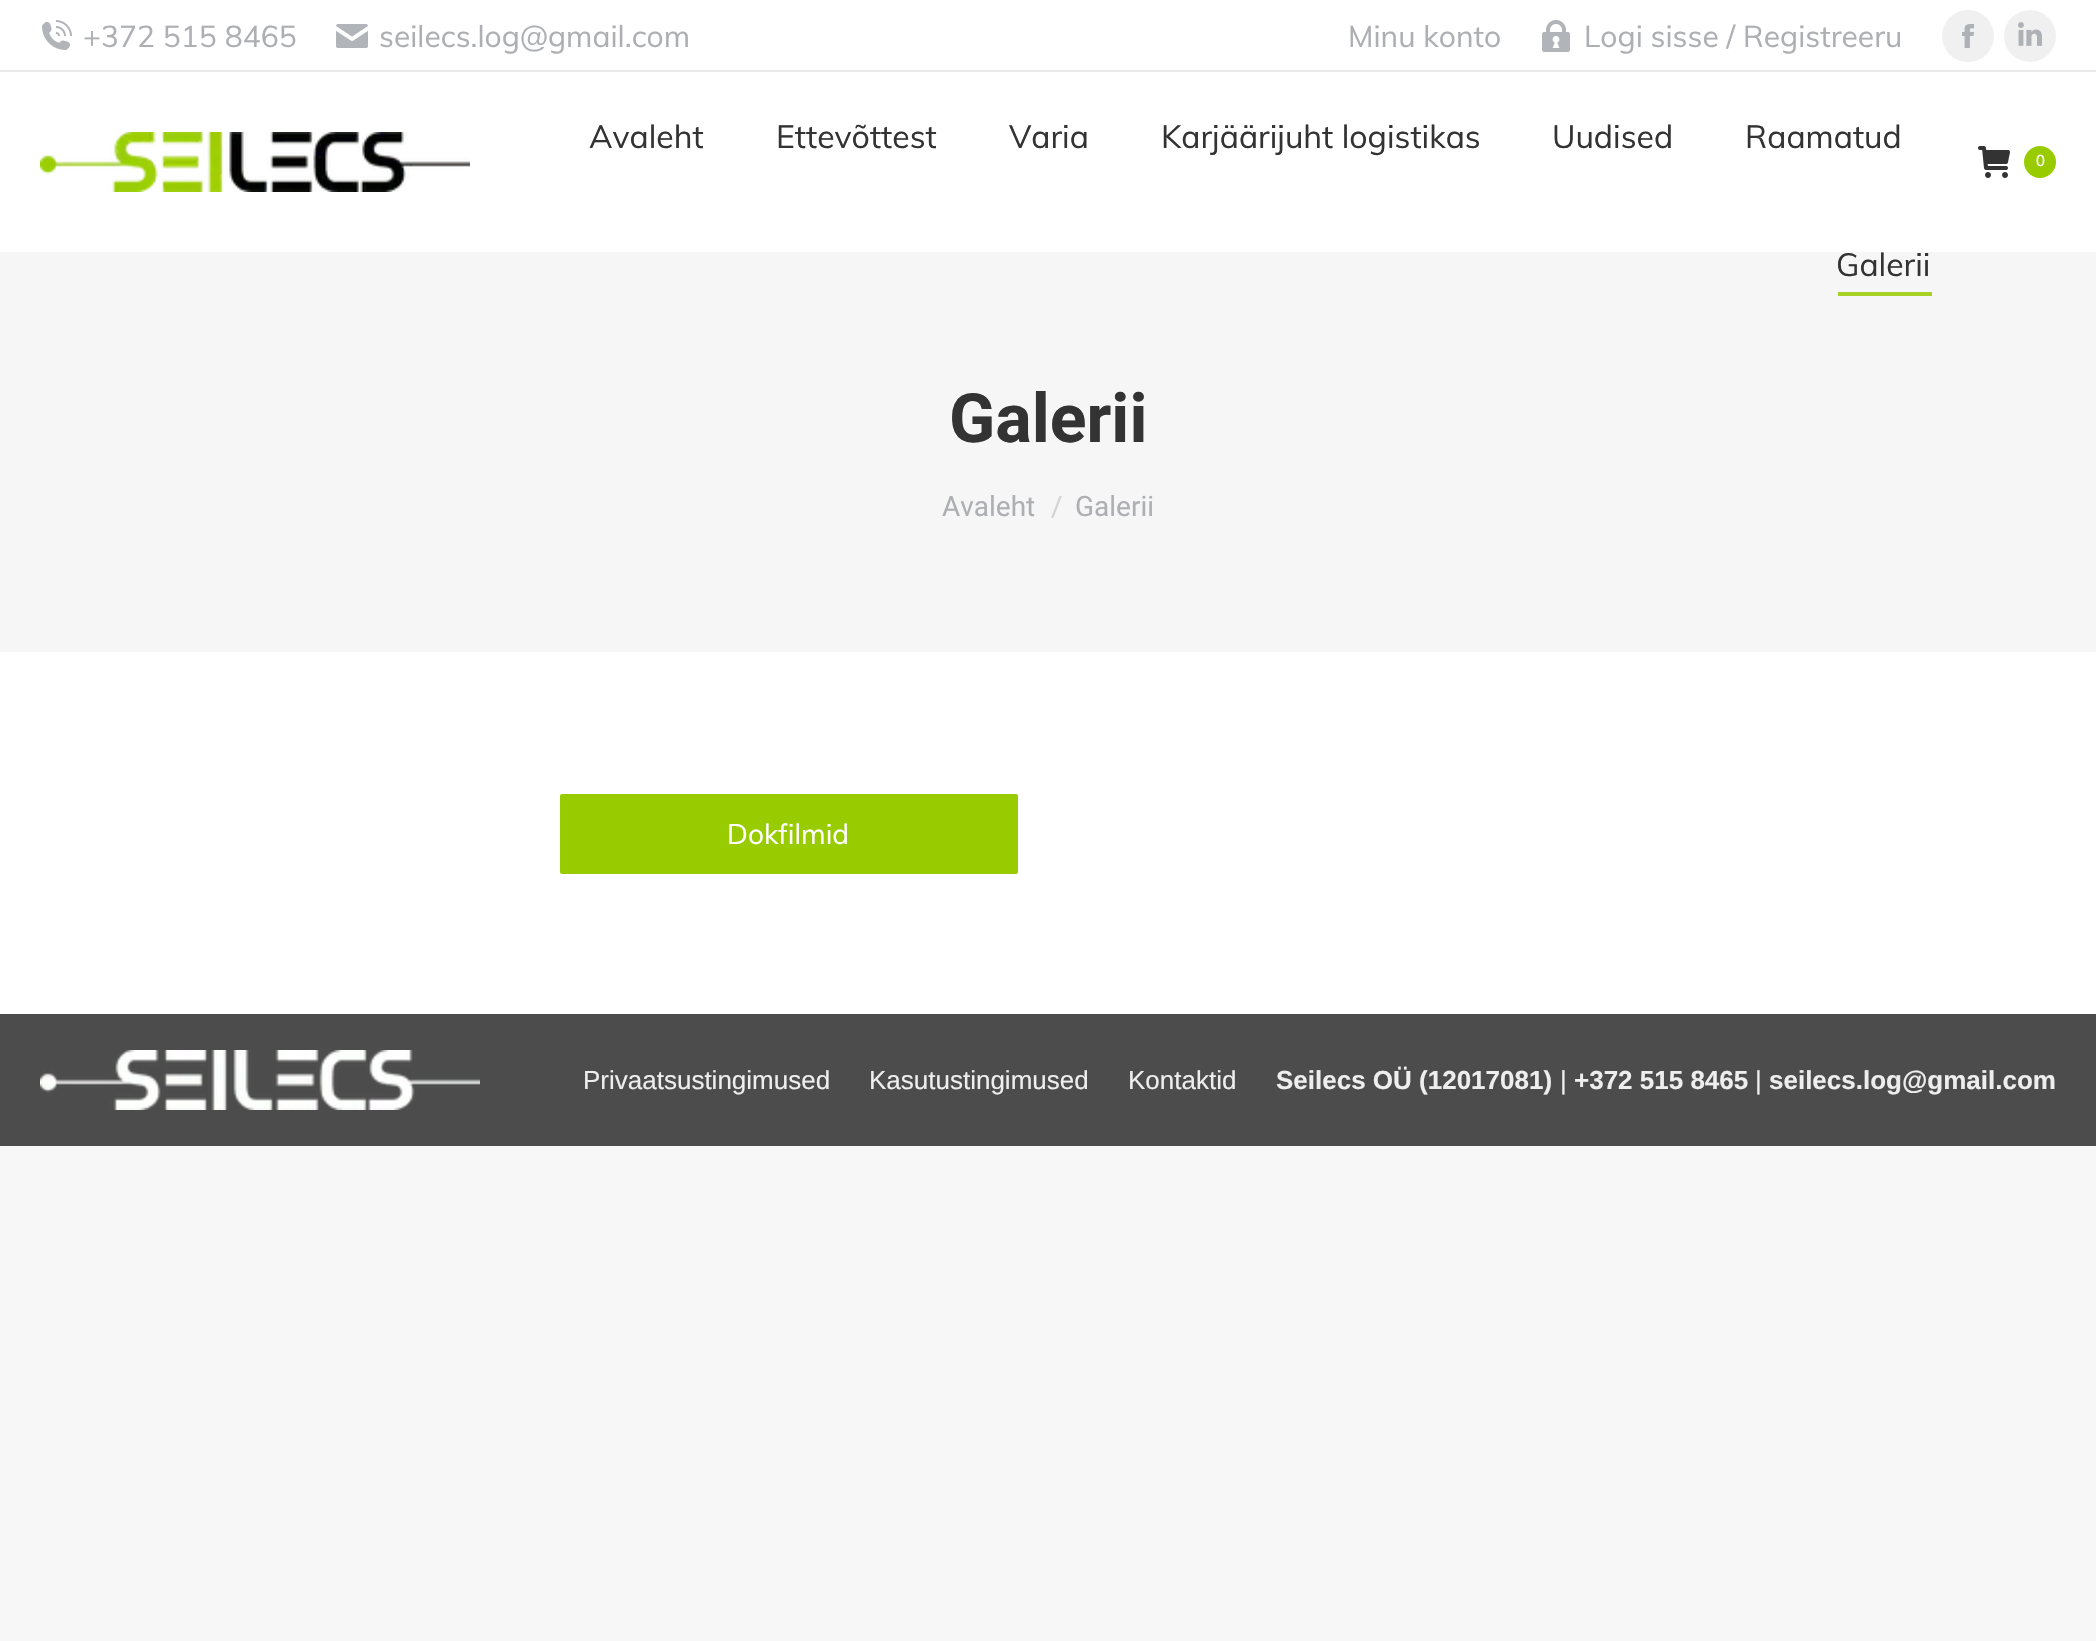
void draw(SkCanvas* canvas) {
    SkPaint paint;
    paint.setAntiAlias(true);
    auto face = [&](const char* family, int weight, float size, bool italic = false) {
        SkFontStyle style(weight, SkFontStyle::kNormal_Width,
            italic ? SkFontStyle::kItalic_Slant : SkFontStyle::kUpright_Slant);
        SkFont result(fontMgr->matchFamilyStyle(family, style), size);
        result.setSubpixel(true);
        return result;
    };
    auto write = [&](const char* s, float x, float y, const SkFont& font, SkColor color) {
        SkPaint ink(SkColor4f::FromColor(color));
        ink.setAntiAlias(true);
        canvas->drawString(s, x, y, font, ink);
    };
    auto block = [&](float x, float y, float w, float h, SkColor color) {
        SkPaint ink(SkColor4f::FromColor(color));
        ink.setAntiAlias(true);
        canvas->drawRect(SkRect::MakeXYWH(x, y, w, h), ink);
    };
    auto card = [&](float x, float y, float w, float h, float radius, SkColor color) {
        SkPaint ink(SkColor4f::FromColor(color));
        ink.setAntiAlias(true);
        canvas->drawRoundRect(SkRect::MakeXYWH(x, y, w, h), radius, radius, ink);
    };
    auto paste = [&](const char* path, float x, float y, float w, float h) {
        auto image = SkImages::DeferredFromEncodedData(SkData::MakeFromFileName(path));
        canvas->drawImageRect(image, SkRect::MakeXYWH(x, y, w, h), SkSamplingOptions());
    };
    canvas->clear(SkColorSetRGB(247, 247, 247));
    block(0, 0, 2096, 1014, SK_ColorWHITE);
    paste("pic1.png", 42, 20, 30, 30);
    auto kFont1 = face("Muli", 400, 30);
    write("+372 515 8465", 83, 47, kFont1, SkColorSetRGB(173, 175, 179));
    paste("pic2.png", 336, 24, 32, 24);
    write("seilecs.log@gmail.com", 379, 47, kFont1, SkColorSetRGB(173, 175, 179));
    write("Minu konto", 1348, 47, kFont1, SkColorSetRGB(173, 175, 179));
    paste("pic3.png", 1542, 20, 28, 32);
    write("Logi sisse / Registreeru", 1584, 47, kFont1, SkColorSetRGB(173, 175, 179));
    paint.setColor(SkColorSetRGB(240, 240, 240));
    canvas->drawCircle(1968, 36, 26, paint);
    paste("pic4.png", 1962, 24, 12, 24);
    canvas->drawCircle(2030, 36, 26, paint);
    paste("pic5.png", 2018, 22, 24, 24);
    block(0, 70, 2096, 2, SkColorSetRGB(233, 233, 233));
    paste("pic6.png", 40, 132, 430, 60);
    auto kFont2 = face("Muli", 400, 32);
    write("Avaleht", 589, 148, kFont2, SkColorSetRGB(51, 51, 51));
    write("Ettevõttest", 776, 148, kFont2, SkColorSetRGB(51, 51, 51));
    write("Varia", 1009, 148, kFont2, SkColorSetRGB(51, 51, 51));
    write("Karjäärijuht logistikas", 1161, 148, kFont2, SkColorSetRGB(51, 51, 51));
    write("Uudised", 1552, 148, kFont2, SkColorSetRGB(51, 51, 51));
    write("Raamatud", 1745, 148, kFont2, SkColorSetRGB(51, 51, 51));
    block(0, 252, 2096, 400, SkColorSetRGB(246, 246, 246));
    write("Galerii", 1836, 276, kFont2, SkColorSetRGB(51, 51, 51));
    block(1838, 292, 94, 4, SkColorSetRGB(167, 210, 37));
    paste("pic7.png", 1978, 146, 32, 32);
    paint.setColor(SkColorSetRGB(153, 204, 0));
    canvas->drawCircle(2040, 162, 16, paint);
    auto kFont3 = face("Liberation Sans", 400, 16);
    write("0", 2036, 166, kFont3, SK_ColorWHITE);
    auto kFont4 = face("Roboto", 700, 68);
    write("Galerii", 949, 442, kFont4, SkColorSetRGB(51, 51, 51));
    auto kFont5 = face("Roboto", 400, 28);
    write("Avaleht", 942, 516, kFont5, SkColorSetRGB(173, 175, 179));
    write("/", 1051, 516, kFont5, SkColorSetRGB(210, 211, 213));
    write("Galerii", 1075, 516, kFont5, SkColorSetRGB(173, 175, 179));
    card(560, 794, 458, 80, 2, SkColorSetRGB(153, 204, 0));
    auto kFont6 = face("Muli", 400, 28);
    write("Dokfilmid", 727, 844, kFont6, SK_ColorWHITE);
    block(0, 1014, 2096, 132, SkColorSetRGB(76, 76, 76));
    paste("pic8.png", 40, 1050, 440, 60);
    auto kFont7 = face("Liberation Sans", 400, 26);
    write("Privaatsustingimused", 583, 1089, kFont7, SkColorSetRGB(238, 238, 238));
    write("Kasutustingimused", 869, 1089, kFont7, SkColorSetRGB(238, 238, 238));
    write("Kontaktid", 1128, 1089, kFont7, SkColorSetRGB(238, 238, 238));
    auto kFont8 = face("Liberation Sans", 700, 26);
    write("Seilecs OÜ (12017081)", 1276, 1089, kFont8, SkColorSetRGB(238, 238, 238));
    write("|", 1560, 1089, kFont7, SkColorSetRGB(238, 238, 238));
    write("+372 515 8465", 1574, 1089, kFont8, SkColorSetRGB(238, 238, 238));
    write("|", 1755, 1089, kFont7, SkColorSetRGB(238, 238, 238));
    write("seilecs.log@gmail.com", 1769, 1089, kFont8, SkColorSetRGB(238, 238, 238));
}
